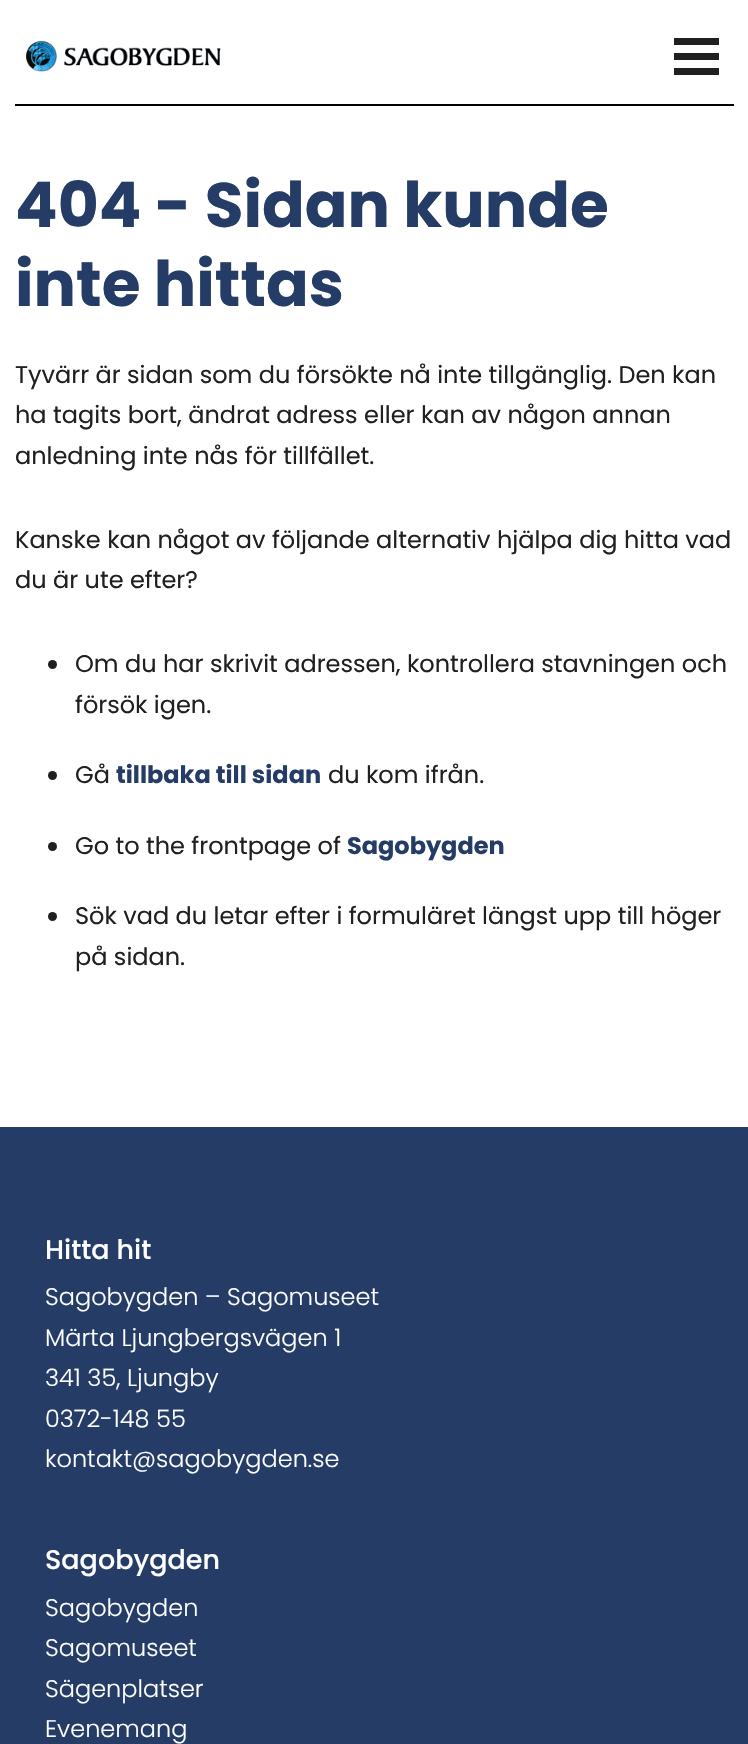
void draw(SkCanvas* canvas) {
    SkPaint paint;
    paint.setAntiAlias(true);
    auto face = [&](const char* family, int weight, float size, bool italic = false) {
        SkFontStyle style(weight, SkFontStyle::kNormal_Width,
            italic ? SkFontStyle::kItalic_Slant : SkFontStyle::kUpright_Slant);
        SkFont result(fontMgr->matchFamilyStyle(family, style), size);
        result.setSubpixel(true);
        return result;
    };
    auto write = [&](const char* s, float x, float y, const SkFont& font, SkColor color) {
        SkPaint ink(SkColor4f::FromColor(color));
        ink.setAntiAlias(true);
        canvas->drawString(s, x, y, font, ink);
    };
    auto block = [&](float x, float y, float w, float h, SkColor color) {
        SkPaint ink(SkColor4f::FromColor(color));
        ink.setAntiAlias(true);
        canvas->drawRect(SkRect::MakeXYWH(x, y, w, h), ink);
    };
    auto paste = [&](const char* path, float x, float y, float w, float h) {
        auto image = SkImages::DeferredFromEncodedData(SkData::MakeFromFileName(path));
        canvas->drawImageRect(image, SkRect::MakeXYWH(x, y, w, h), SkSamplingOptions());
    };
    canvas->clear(SK_ColorWHITE);
    block(674, 38, 45, 7, SkColorSetRGB(32, 32, 32));
    block(674, 53, 45, 7, SkColorSetRGB(32, 32, 32));
    block(674, 68, 45, 7, SkColorSetRGB(32, 32, 32));
    block(15, 104, 719, 2, SK_ColorBLACK);
    paste("pic1.png", 26, 40, 195, 32);
    auto kFont1 = face("Poppins", 700, 63);
    write("404 - Sidan kunde", 15, 227, kFont1, SkColorSetRGB(37, 61, 102));
    write("inte hittas", 15, 306, kFont1, SkColorSetRGB(37, 61, 102));
    auto kFont2 = face("Poppins", 400, 24);
    write("Tyvärr är sidan som du försökte nå inte tillgänglig. Den kan", 15, 383, kFont2, SkColorSetRGB(32, 32, 32));
    write("ha tagits bort, ändrat adress eller kan av någon annan", 15, 423, kFont2, SkColorSetRGB(32, 32, 32));
    write("anledning inte nås för tillfället.", 15, 464, kFont2, SkColorSetRGB(32, 32, 32));
    write("Kanske kan något av följande alternativ hjälpa dig hitta vad", 15, 548, kFont2, SkColorSetRGB(32, 32, 32));
    write("du är ute efter?", 15, 588, kFont2, SkColorSetRGB(32, 32, 32));
    paint.setColor(SkColorSetRGB(32, 32, 32));
    canvas->drawCircle(52.5f, 664.5f, 4.5f, paint);
    write("Om du har skrivit adressen, kontrollera stavningen och", 75, 672, kFont2, SkColorSetRGB(32, 32, 32));
    write("försök igen.", 75, 713, kFont2, SkColorSetRGB(32, 32, 32));
    canvas->drawCircle(52.5f, 775.5f, 4.5f, paint);
    write("Gå", 75, 783, kFont2, SkColorSetRGB(32, 32, 32));
    auto kFont3 = face("Poppins", 700, 24);
    write("tillbaka till sidan", 116, 783, kFont3, SkColorSetRGB(37, 61, 102));
    write("du kom ifrån.", 328, 783, kFont2, SkColorSetRGB(32, 32, 32));
    canvas->drawCircle(52.5f, 846.5f, 4.5f, paint);
    write("Go to the frontpage of", 75, 854, kFont2, SkColorSetRGB(32, 32, 32));
    write("Sagobygden", 347, 854, kFont3, SkColorSetRGB(37, 61, 102));
    canvas->drawCircle(52.5f, 916.5f, 4.5f, paint);
    write("Sök vad du letar efter i formuläret längst upp till höger", 75, 924, kFont2, SkColorSetRGB(32, 32, 32));
    write("på sidan.", 75, 965, kFont2, SkColorSetRGB(32, 32, 32));
    block(0, 1127, 748, 617, SkColorSetRGB(37, 61, 102));
    auto kFont4 = face("Poppins", 500, 27);
    write("Hitta hit", 45, 1259, kFont4, SK_ColorWHITE);
    auto kFont5 = face("Poppins", 300, 24);
    write("Sagobygden – Sagomuseet", 45, 1305, kFont5, SK_ColorWHITE);
    write("Märta Ljungbergsvägen 1", 45, 1346, kFont5, SK_ColorWHITE);
    write("341 35, Ljungby", 45, 1386, kFont5, SK_ColorWHITE);
    write("0372-148 55", 45, 1427, kFont5, SK_ColorWHITE);
    write("kontakt@sagobygden.se", 45, 1467, kFont5, SK_ColorWHITE);
    write("Sagobygden", 45, 1569, kFont4, SK_ColorWHITE);
    write("Sagobygden", 45, 1616, kFont5, SK_ColorWHITE);
    write("Sagomuseet", 45, 1656, kFont5, SK_ColorWHITE);
    write("Sägenplatser", 45, 1697, kFont5, SK_ColorWHITE);
    write("Evenemang", 45, 1737, kFont5, SK_ColorWHITE);
}
